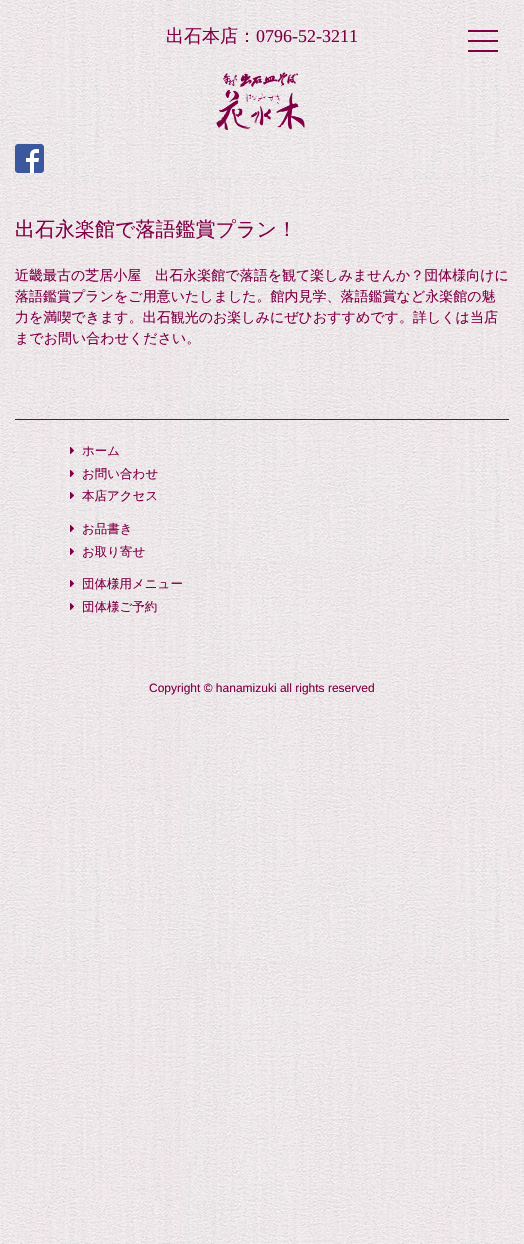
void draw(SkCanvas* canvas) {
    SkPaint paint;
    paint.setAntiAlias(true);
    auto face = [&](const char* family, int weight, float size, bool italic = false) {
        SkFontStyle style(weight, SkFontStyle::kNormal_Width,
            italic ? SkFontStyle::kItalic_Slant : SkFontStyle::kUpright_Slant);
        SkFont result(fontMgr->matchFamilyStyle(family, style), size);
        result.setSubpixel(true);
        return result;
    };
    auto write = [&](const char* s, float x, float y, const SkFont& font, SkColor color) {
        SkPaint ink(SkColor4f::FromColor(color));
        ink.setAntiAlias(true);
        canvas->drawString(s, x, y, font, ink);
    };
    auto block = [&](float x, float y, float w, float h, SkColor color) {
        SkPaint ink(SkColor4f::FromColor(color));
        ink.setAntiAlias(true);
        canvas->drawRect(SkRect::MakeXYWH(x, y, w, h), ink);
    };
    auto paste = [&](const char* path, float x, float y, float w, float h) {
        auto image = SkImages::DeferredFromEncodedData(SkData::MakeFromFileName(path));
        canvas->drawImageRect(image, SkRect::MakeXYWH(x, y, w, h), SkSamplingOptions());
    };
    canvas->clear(SK_ColorWHITE);
    paste("pic1.png", 0, 0, 524, 1244);
    paste("pic2.png", 0, 15, 524, 168);
    auto kFont1 = face("WenQuanYi Zen Hei", 500, 18);
    write("出石本店：", 166, 42, kFont1, SkColorSetRGB(128, 0, 70));
    auto kFont2 = face("Liberation Serif", 400, 18);
    write("0796-52-3211", 256, 42, kFont2, SkColorSetRGB(128, 0, 70));
    paste("pic3.png", 216, 72, 89, 58);
    block(468, 30, 30, 2, SkColorSetRGB(128, 0, 70));
    block(468, 40, 30, 2, SkColorSetRGB(128, 0, 70));
    block(468, 50, 30, 2, SkColorSetRGB(128, 0, 70));
    paste("pic4.png", 15, 144, 29, 29);
    auto kFont3 = face("WenQuanYi Zen Hei", 500, 20);
    write("出石永楽館で落語鑑賞プラン！", 15, 236, kFont3, SkColorSetRGB(128, 0, 70));
    auto kFont4 = face("WenQuanYi Zen Hei", 500, 14);
    write("近畿最古の芝居小屋　出石永楽館で落語を観て楽しみませんか？団体様向けに", 15, 280, kFont4, SkColorSetRGB(128, 0, 70));
    write("落語鑑賞プランをご用意いたしました。館内見学、落語鑑賞など永楽館の魅", 15, 301, kFont4, SkColorSetRGB(128, 0, 70));
    write("力を満喫できます。出石観光のお楽しみにぜひおすすめです。詳しくは当店", 15, 322, kFont4, SkColorSetRGB(128, 0, 70));
    write("までお問い合わせください。", 15, 343, kFont4, SkColorSetRGB(128, 0, 70));
    block(15, 419, 494, 1, SkColorSetRGB(128, 0, 70));
    paste("pic5.png", 70, 447, 4, 7);
    auto kFont5 = face("WenQuanYi Zen Hei", 500, 12.5f);
    write("ホーム", 82, 455, kFont5, SkColorSetRGB(128, 0, 70));
    paste("pic6.png", 70, 470, 4, 7);
    write("お問い合わせ", 82, 478, kFont5, SkColorSetRGB(128, 0, 70));
    paste("pic7.png", 70, 492, 4, 7);
    write("本店アクセス", 82, 500, kFont5, SkColorSetRGB(128, 0, 70));
    paste("pic8.png", 70, 525, 4, 7);
    write("お品書き", 82, 533, kFont5, SkColorSetRGB(128, 0, 70));
    paste("pic9.png", 70, 548, 4, 7);
    write("お取り寄せ", 82, 556, kFont5, SkColorSetRGB(128, 0, 70));
    paste("pic10.png", 70, 580, 4, 7);
    write("団体様用メニュー", 82, 588, kFont5, SkColorSetRGB(128, 0, 70));
    paste("pic11.png", 70, 603, 4, 7);
    write("団体様ご予約", 82, 611, kFont5, SkColorSetRGB(128, 0, 70));
    auto kFont6 = face("Liberation Sans", 400, 12);
    write("Copyright © hanamizuki all rights reserved", 149, 692, kFont6, SkColorSetRGB(128, 0, 70));
}
